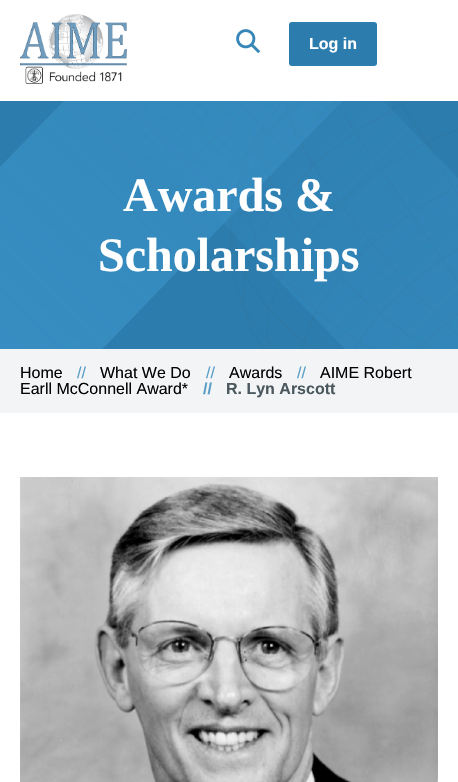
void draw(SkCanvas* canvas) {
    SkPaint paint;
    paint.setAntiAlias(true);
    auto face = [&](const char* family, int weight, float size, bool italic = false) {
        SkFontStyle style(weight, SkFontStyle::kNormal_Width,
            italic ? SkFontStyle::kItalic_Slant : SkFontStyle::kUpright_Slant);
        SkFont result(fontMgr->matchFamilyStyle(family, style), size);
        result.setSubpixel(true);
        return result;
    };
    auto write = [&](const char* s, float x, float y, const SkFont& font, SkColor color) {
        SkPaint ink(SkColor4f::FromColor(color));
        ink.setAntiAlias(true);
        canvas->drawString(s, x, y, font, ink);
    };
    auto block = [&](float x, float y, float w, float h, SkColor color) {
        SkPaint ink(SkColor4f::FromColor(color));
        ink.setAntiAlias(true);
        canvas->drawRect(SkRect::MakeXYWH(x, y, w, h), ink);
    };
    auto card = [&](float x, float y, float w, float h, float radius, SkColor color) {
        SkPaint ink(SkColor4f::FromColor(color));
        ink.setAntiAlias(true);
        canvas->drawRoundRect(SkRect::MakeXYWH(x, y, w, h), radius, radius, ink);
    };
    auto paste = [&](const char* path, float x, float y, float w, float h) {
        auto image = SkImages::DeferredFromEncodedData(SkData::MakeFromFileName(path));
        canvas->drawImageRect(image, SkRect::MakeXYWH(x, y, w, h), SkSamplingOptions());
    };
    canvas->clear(SK_ColorWHITE);
    paste("pic1.png", 20, 14, 107, 70);
    paste("pic2.png", 236, 29, 24, 24);
    card(289, 22, 88, 44, 3, SkColorSetRGB(44, 125, 174));
    auto kFont1 = face("Liberation Sans", 700, 16);
    write("Log in", 309, 49, kFont1, SK_ColorWHITE);
    block(0, 349, 458, 64, SkColorSetRGB(242, 244, 245));
    block(0, 101, 458, 248, SkColorSetRGB(44, 125, 174));
    paste("pic3.png", 229, 101, 229, 248);
    canvas->save();
    canvas->clipRect(SkRect::MakeXYWH(0, 101, 458, 248));
    {
        const SkColor colors[] = {SkColorSetARGB(179, 60, 148, 201), SkColorSetARGB(77, 60, 152, 207)};
        const float stops[] = {0, 1};
        const SkPoint ends[] = {{-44, 356}, {304, -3.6f}};
        paint.setShader(SkGradientShader::MakeLinear(ends, colors, stops, 2, SkTileMode::kClamp));
        paint.setAlpha(255);
    }
    canvas->drawPath(SkPathBuilder().moveTo(-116, 287).lineTo(232, -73).lineTo(376, 66).lineTo(28, 426).close().detach(), paint);
    {
        const SkColor colors[] = {SkColorSetARGB(0, 60, 152, 207), SkColorSetARGB(102, 60, 152, 207)};
        const float stops[] = {0, 1};
        const SkPoint ends[] = {{167, 21}, {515, 381}};
        paint.setShader(SkGradientShader::MakeLinear(ends, colors, stops, 2, SkTileMode::kClamp));
        paint.setAlpha(255);
    }
    canvas->drawPath(SkPathBuilder().moveTo(239, -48).lineTo(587, 311).lineTo(443, 450).lineTo(95, 91).close().detach(), paint);
    canvas->restore();
    auto kFont2 = face("Liberation Serif", 700, 48);
    write("Awards &", 123, 211, kFont2, SK_ColorWHITE);
    write("Scholarships", 98, 271, kFont2, SK_ColorWHITE);
    auto kFont3 = face("Liberation Sans", 400, 16);
    write("Home", 20, 378, kFont3, SkColorSetRGB(3, 3, 3));
    write("//", 77, 378, kFont3, SkColorSetRGB(88, 157, 199));
    write("What We Do", 100, 378, kFont3, SkColorSetRGB(3, 3, 3));
    write("//", 206, 378, kFont3, SkColorSetRGB(88, 157, 199));
    write("Awards", 229, 378, kFont3, SkColorSetRGB(3, 3, 3));
    write("//", 297, 378, kFont3, SkColorSetRGB(88, 157, 199));
    write("AIME Robert", 320, 378, kFont3, SkColorSetRGB(3, 3, 3));
    write("Earll McConnell Award*", 20, 394, kFont3, SkColorSetRGB(3, 3, 3));
    write("//", 203, 394, kFont1, SkColorSetRGB(88, 157, 199));
    write("R. Lyn Arscott", 226, 394, kFont1, SkColorSetRGB(74, 87, 94));
    paste("pic4.png", 20, 477, 418, 305);
}
